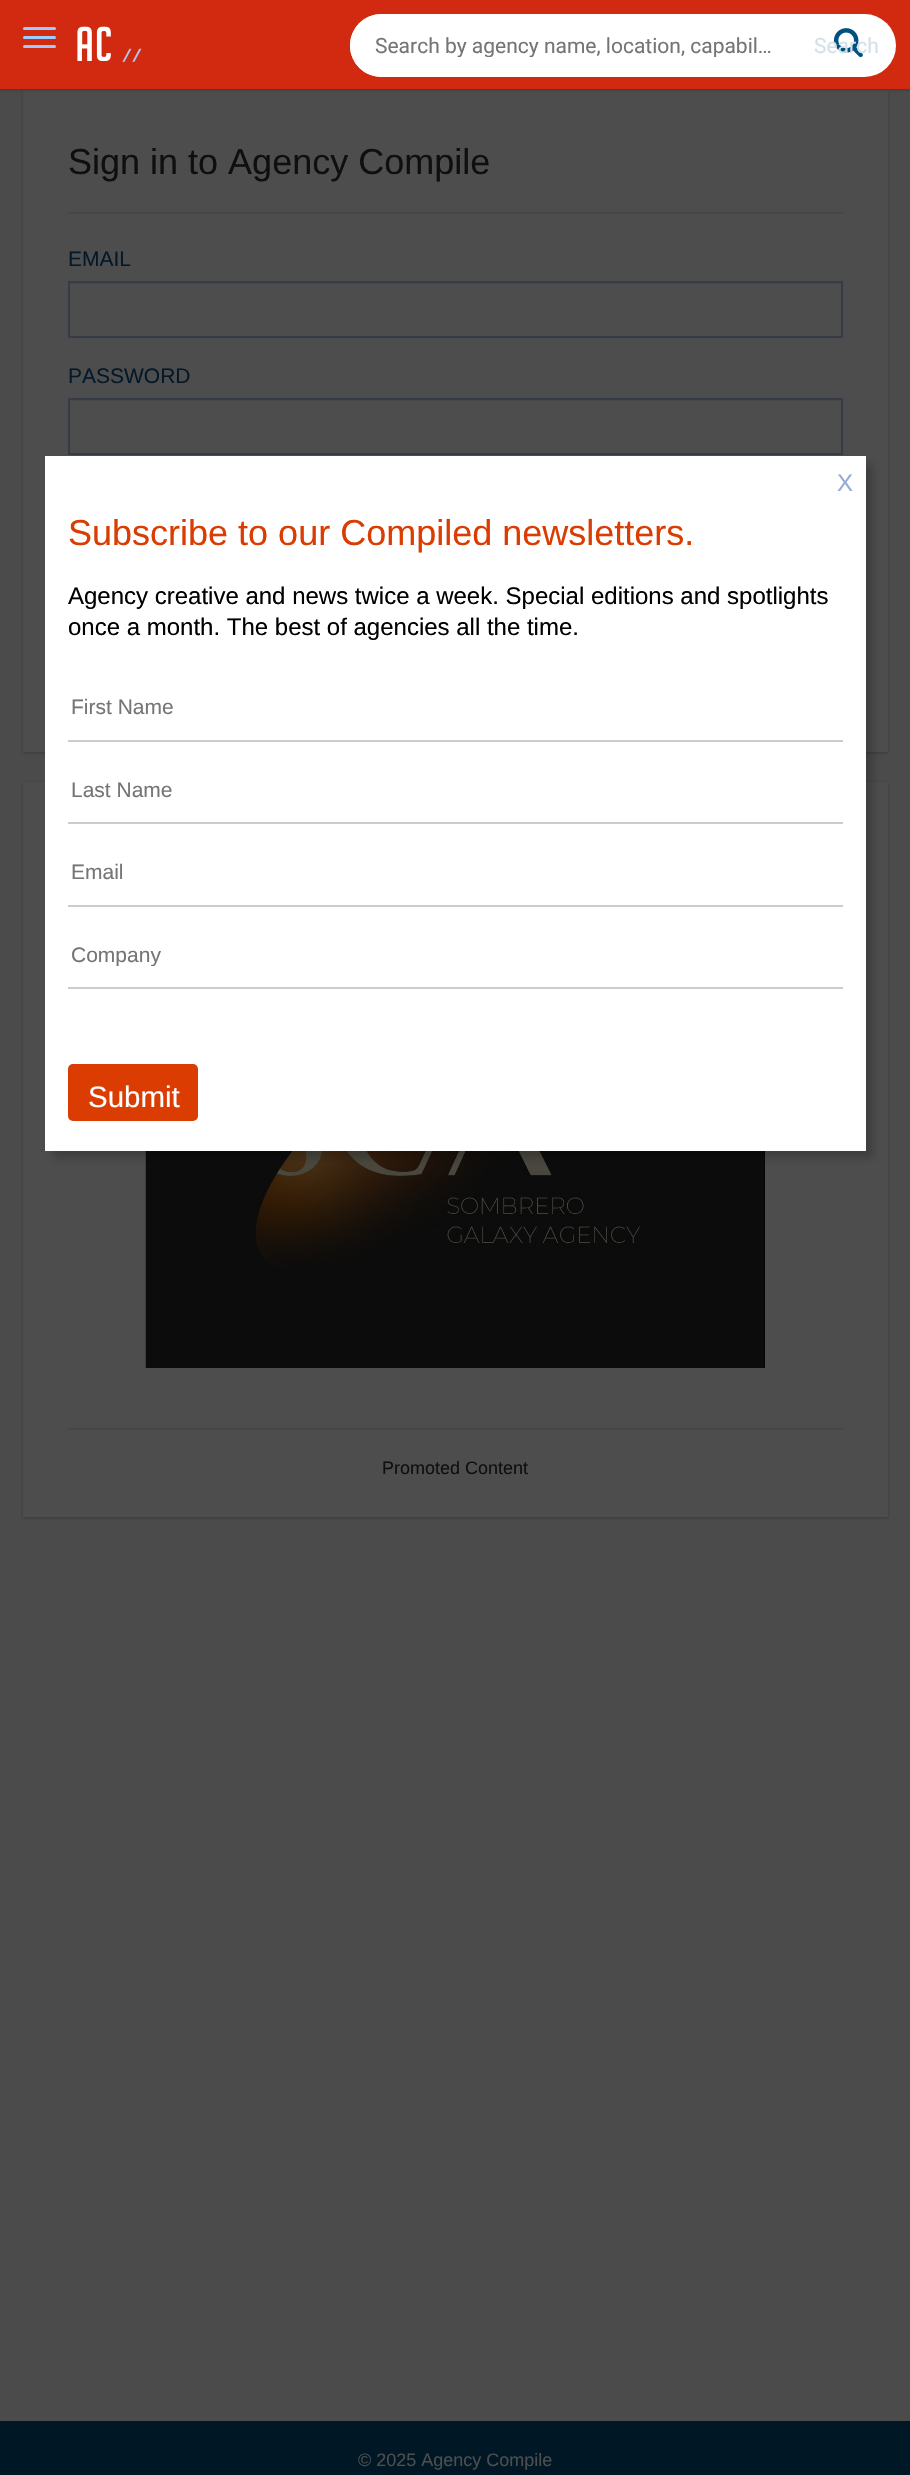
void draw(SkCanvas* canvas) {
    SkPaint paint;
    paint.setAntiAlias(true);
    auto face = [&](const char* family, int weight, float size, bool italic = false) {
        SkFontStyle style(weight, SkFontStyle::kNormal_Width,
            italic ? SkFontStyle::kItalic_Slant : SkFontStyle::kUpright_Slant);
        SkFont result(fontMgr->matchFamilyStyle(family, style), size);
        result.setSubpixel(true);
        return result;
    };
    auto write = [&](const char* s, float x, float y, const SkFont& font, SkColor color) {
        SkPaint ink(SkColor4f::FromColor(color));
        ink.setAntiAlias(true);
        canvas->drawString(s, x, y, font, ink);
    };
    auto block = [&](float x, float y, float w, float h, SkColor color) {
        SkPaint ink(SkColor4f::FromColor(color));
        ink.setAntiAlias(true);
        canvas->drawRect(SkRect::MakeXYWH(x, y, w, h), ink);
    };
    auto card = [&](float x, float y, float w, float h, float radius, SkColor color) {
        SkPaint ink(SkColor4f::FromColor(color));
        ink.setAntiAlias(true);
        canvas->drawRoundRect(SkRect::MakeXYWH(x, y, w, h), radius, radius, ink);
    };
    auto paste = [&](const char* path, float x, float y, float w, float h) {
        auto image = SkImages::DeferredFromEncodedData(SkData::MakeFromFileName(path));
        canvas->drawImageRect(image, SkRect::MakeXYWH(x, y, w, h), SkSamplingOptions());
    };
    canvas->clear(SkColorSetRGB(75, 75, 75));
    paint.setColor(SkColorSetARGB(61, 0, 0, 0));
    paint.setMaskFilter(SkMaskFilter::MakeBlur(kNormal_SkBlurStyle, 1.5f));
    canvas->drawRect(SkRect::MakeXYWH(23, 92, 865, 661), paint);
    paint.setMaskFilter(nullptr);
    block(23, 90, 865, 662, SkColorSetRGB(77, 77, 77));
    paint.setMaskFilter(SkMaskFilter::MakeBlur(kNormal_SkBlurStyle, 1.5f));
    canvas->drawRect(SkRect::MakeXYWH(0, 2, 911, 88), paint);
    paint.setMaskFilter(nullptr);
    block(0, 0, 910, 89, SkColorSetRGB(210, 42, 17));
    card(23, 27, 33, 3, 1.5f, SkColorSetRGB(153, 204, 255));
    card(23, 36, 33, 3, 1.5f, SkColorSetRGB(153, 204, 255));
    card(23, 45, 33, 3, 1.5f, SkColorSetRGB(153, 204, 255));
    paste("pic1.png", 77, 26, 65, 36);
    card(350, 14, 546, 63, 31.5f, SK_ColorWHITE);
    paint.setColor(SK_ColorWHITE);
    canvas->drawPath(SkPathBuilder().moveTo(381.5f, 14).lineTo(798, 14).lineTo(798, 77).lineTo(381.5f, 77).cubicTo(364, 77, 350, 63, 350, 45.5f).cubicTo(350, 28, 364, 14, 381.5f, 14).close().detach(), paint);
    canvas->save();
    canvas->clipRect(SkRect::MakeXYWH(375, 33, 398, 24));
    auto kFont1 = face("Roboto", 400, 21);
    write("Search by agency name, location, capabil…", 375, 53, kFont1, SkColorSetRGB(117, 117, 117));
    canvas->restore();
    paste("pic2.png", 833, 28, 30, 30);
    write("Search", 814, 53, kFont1, SkColorSetRGB(212, 225, 233));
    auto kFont2 = face("Liberation Sans", 400, 36);
    write("Sign in to Agency Compile", 68, 174, kFont2, SkColorSetRGB(15, 15, 15));
    block(68, 212, 775, 2, SkColorSetRGB(71, 71, 71));
    auto kFont3 = face("Liberation Sans", 400, 21);
    write("EMAIL", 68, 266, kFont3, SkColorSetRGB(3, 24, 40));
    block(69, 283, 773, 1, SkColorSetRGB(71, 71, 71));
    paint.setStyle(SkPaint::kStroke_Style);
    paint.setStrokeWidth(2);
    paint.setColor(SkColorSetRGB(53, 60, 70));
    canvas->drawRect(SkRect::MakeXYWH(69, 282, 773, 55), paint);
    write("PASSWORD", 68, 383, kFont3, SkColorSetRGB(3, 24, 40));
    block(69, 400, 773, 1, SkColorSetRGB(71, 71, 71));
    canvas->drawRect(SkRect::MakeXYWH(69, 399, 773, 55), paint);
    paint.setStyle(SkPaint::kFill_Style);
    paint.setColor(SkColorSetARGB(61, 0, 0, 0));
    paint.setMaskFilter(SkMaskFilter::MakeBlur(kNormal_SkBlurStyle, 1.5f));
    canvas->drawRect(SkRect::MakeXYWH(23, 783, 865, 735), paint);
    paint.setMaskFilter(nullptr);
    block(23, 782, 865, 735, SkColorSetRGB(77, 77, 77));
    paste("pic3.png", 145, 1151, 620, 217);
    block(68, 1428, 775, 2, SkColorSetRGB(71, 71, 71));
    auto kFont4 = face("Liberation Sans", 400, 18);
    write("Promoted Content", 382, 1474, kFont4, SkColorSetRGB(15, 15, 15));
    paint.setColor(SkColorSetARGB(51, 0, 0, 0));
    paint.setMaskFilter(SkMaskFilter::MakeBlur(kNormal_SkBlurStyle, 4));
    canvas->drawRect(SkRect::MakeXYWH(53, 464, 820, 694), paint);
    paint.setMaskFilter(nullptr);
    block(45, 456, 821, 695, SK_ColorWHITE);
    auto kFont5 = face("Liberation Sans", 400, 24);
    write("X", 837, 491, kFont5, SkColorSetRGB(148, 170, 215));
    write("Subscribe to our Compiled newsletters.", 68, 545, kFont2, SkColorSetRGB(218, 60, 1));
    write("Agency creative and news twice a week. Special editions and spotlights", 68, 604, kFont5, SK_ColorBLACK);
    write("once a month. The best of agencies all the time.", 68, 635, kFont5, SK_ColorBLACK);
    block(68, 740, 775, 2, SkColorSetRGB(204, 204, 204));
    write("First Name", 71, 714, kFont3, SkColorSetRGB(117, 117, 117));
    block(68, 822, 775, 2, SkColorSetRGB(204, 204, 204));
    write("Last Name", 71, 797, kFont3, SkColorSetRGB(117, 117, 117));
    block(68, 905, 775, 2, SkColorSetRGB(204, 204, 204));
    write("Email", 71, 879, kFont3, SkColorSetRGB(117, 117, 117));
    block(68, 987, 775, 2, SkColorSetRGB(204, 204, 204));
    canvas->save();
    canvas->clipRect(SkRect::MakeXYWH(71, 942, 769, 24));
    write("Company", 71, 962, kFont3, SkColorSetRGB(117, 117, 117));
    canvas->restore();
    card(68, 1064, 130, 57, 5, SkColorSetRGB(218, 60, 1));
    auto kFont6 = face("Liberation Sans", 400, 29.5f);
    write("Submit", 88, 1107, kFont6, SK_ColorWHITE);
    block(0, 2421, 910, 54, SkColorSetRGB(0, 24, 38));
    write("© 2025 Agency Compile", 358, 2466, kFont4, SkColorSetRGB(77, 77, 77));
}
